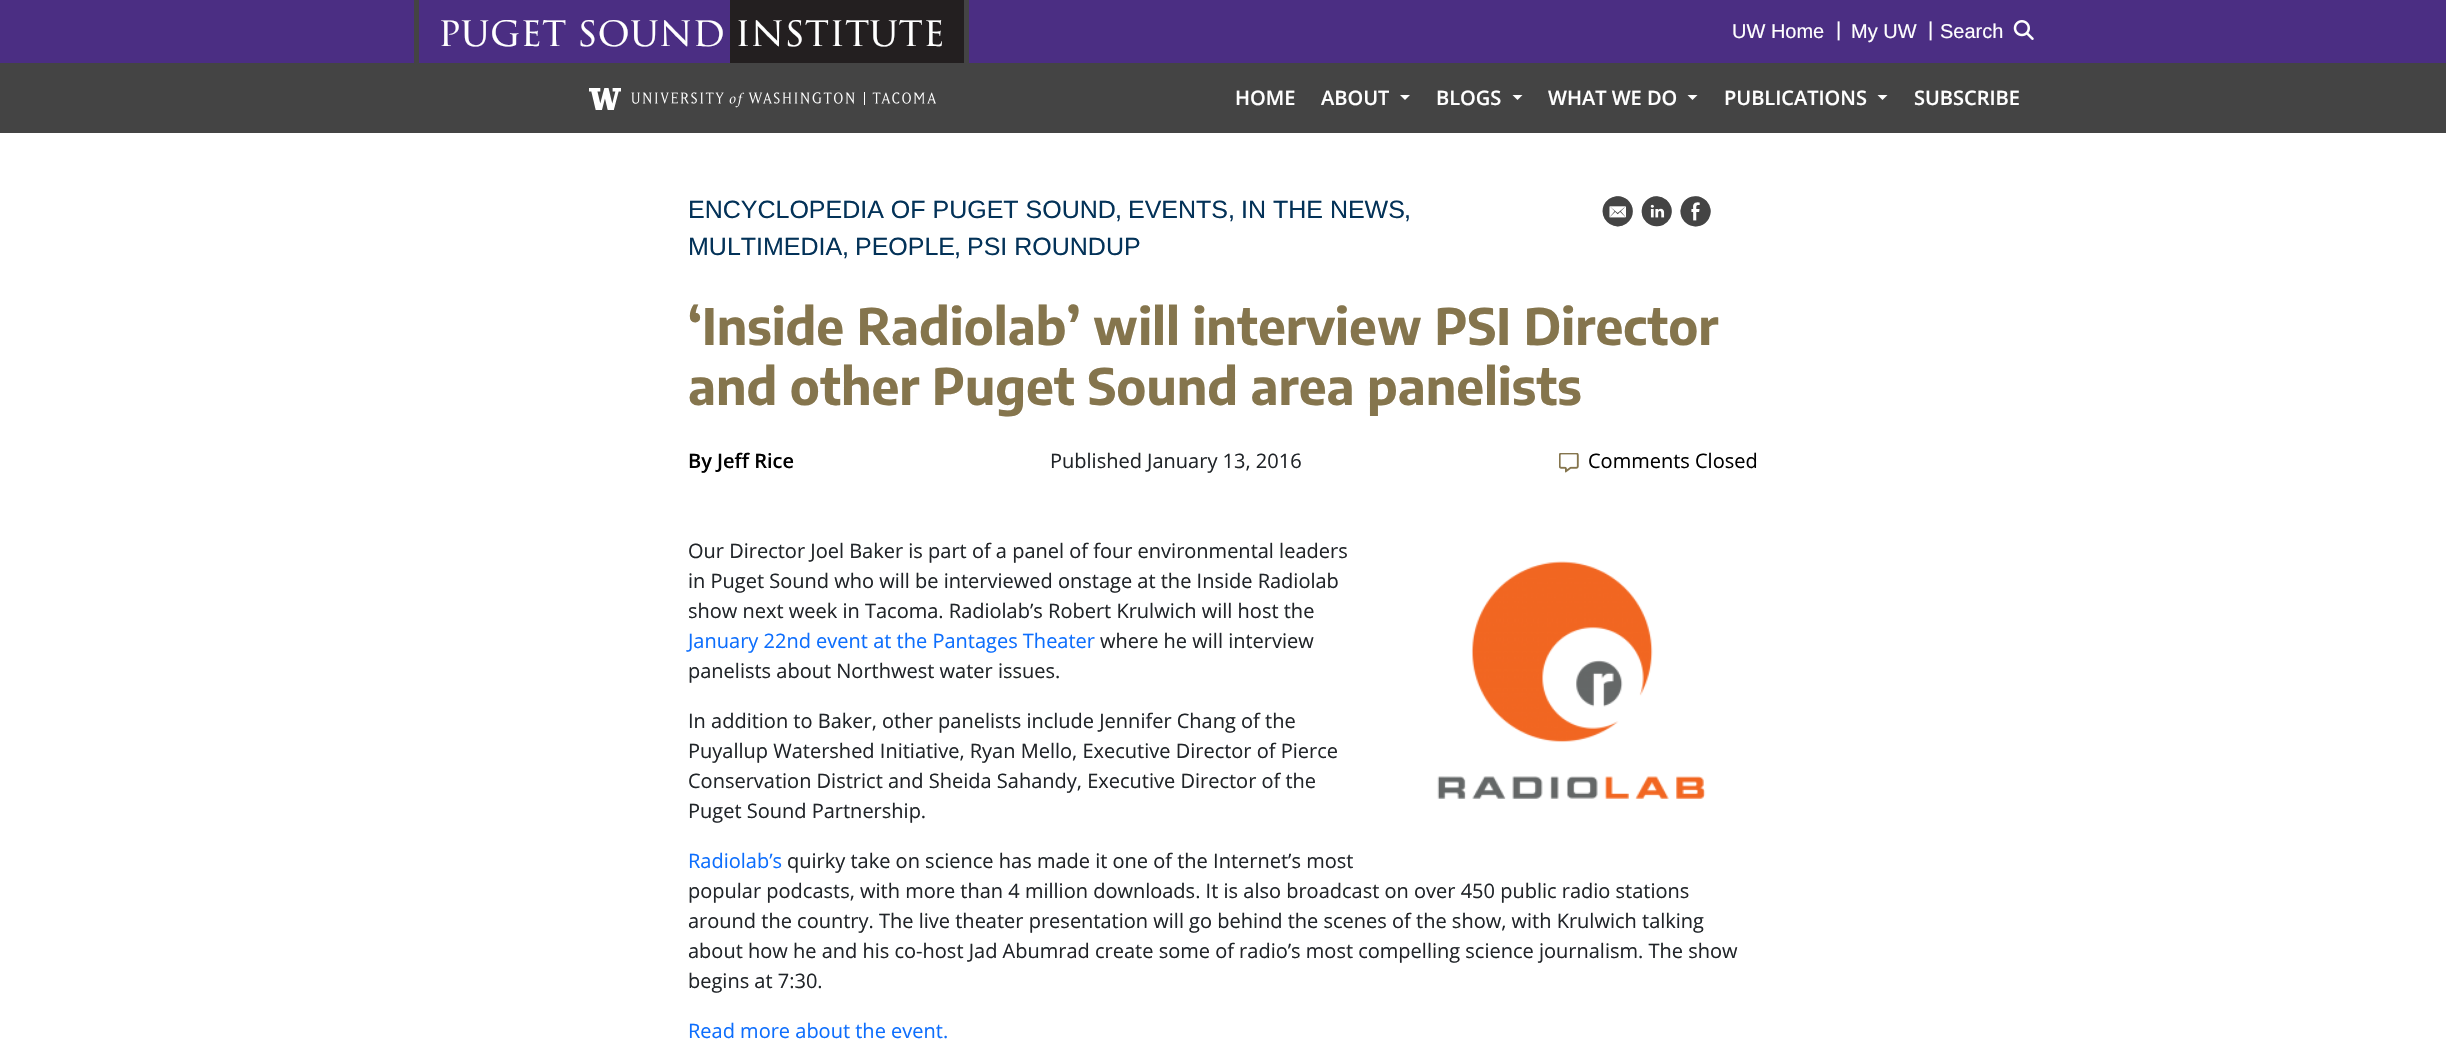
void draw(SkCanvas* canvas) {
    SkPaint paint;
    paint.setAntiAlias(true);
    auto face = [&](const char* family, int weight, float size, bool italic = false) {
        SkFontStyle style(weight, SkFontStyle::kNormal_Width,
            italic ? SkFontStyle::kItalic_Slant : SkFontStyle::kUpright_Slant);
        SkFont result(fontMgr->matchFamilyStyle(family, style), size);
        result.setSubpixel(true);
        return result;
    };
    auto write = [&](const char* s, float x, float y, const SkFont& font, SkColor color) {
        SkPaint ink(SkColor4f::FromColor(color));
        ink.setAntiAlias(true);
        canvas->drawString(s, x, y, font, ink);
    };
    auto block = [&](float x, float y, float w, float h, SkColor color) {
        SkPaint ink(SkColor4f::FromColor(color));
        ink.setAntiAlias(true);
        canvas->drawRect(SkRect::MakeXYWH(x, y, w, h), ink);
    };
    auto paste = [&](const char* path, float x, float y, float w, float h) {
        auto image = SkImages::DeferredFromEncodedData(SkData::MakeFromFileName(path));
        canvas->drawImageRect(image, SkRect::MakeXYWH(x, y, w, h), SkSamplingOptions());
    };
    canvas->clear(SK_ColorWHITE);
    block(0, 0, 2446, 63, SkColorSetRGB(75, 46, 131));
    block(964, 0, 5, 63, SkColorSetRGB(68, 68, 68));
    block(414, 0, 5, 63, SkColorSetRGB(68, 68, 68));
    auto kFont1 = face("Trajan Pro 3", 400, 40);
    write("puget", 438, 46, kFont1, SK_ColorWHITE);
    write("sound", 577, 46, kFont1, SK_ColorWHITE);
    block(730, 0, 234, 63, SkColorSetRGB(35, 31, 32));
    write("institute", 735, 46, kFont1, SK_ColorWHITE);
    auto kFont2 = face("Liberation Sans", 400, 20);
    write("UW Home", 1732, 38, kFont2, SK_ColorWHITE);
    write("|", 1836, 36, kFont2, SK_ColorWHITE);
    write("My UW", 1851, 38, kFont2, SK_ColorWHITE);
    write("|", 1928, 36, kFont2, SK_ColorWHITE);
    write("Search", 1940, 38, kFont2, SK_ColorWHITE);
    paste("pic1.png", 2013, 20, 21, 20);
    block(0, 63, 2446, 70, SkColorSetRGB(68, 68, 68));
    paste("pic2.png", 589, 88, 32, 22);
    paste("pic3.png", 631, 92, 305, 16);
    auto kFont3 = face("Open Sans", 600, 20);
    write("HOME", 1235, 105, kFont3, SK_ColorWHITE);
    write("ABOUT", 1321, 105, kFont3, SK_ColorWHITE);
    paint.setColor(SK_ColorWHITE);
    canvas->drawPath(SkPathBuilder().moveTo(1400, 95).lineTo(1410, 95).lineTo(1405, 100).close().detach(), paint);
    write("BLOGS", 1436, 105, kFont3, SK_ColorWHITE);
    canvas->drawPath(SkPathBuilder().moveTo(1512.5f, 95).lineTo(1522.5f, 95).lineTo(1517.5f, 100).close().detach(), paint);
    write("WHAT WE DO", 1548, 105, kFont3, SK_ColorWHITE);
    canvas->drawPath(SkPathBuilder().moveTo(1687.5f, 95).lineTo(1697.5f, 95).lineTo(1692.5f, 100).close().detach(), paint);
    write("PUBLICATIONS", 1724, 105, kFont3, SK_ColorWHITE);
    canvas->drawPath(SkPathBuilder().moveTo(1877.5f, 95).lineTo(1887.5f, 95).lineTo(1882.5f, 100).close().detach(), paint);
    write("SUBSCRIBE", 1914, 105, kFont3, SK_ColorWHITE);
    auto kFont4 = face("Liberation Sans", 400, 25);
    write("ENCYCLOPEDIA OF PUGET SOUND", 688, 218, kFont4, SkColorSetRGB(3, 50, 88));
    write(",", 1115, 218, kFont4, SkColorSetRGB(3, 50, 88));
    write("EVENTS", 1128, 218, kFont4, SkColorSetRGB(3, 50, 88));
    write(",", 1228, 218, kFont4, SkColorSetRGB(3, 50, 88));
    write("IN THE NEWS", 1241, 218, kFont4, SkColorSetRGB(3, 50, 88));
    write(",", 1404, 218, kFont4, SkColorSetRGB(3, 50, 88));
    write("MULTIMEDIA", 688, 255, kFont4, SkColorSetRGB(3, 50, 88));
    write(",", 842, 255, kFont4, SkColorSetRGB(3, 50, 88));
    write("PEOPLE", 855, 255, kFont4, SkColorSetRGB(3, 50, 88));
    write(",", 954, 255, kFont4, SkColorSetRGB(3, 50, 88));
    write("PSI ROUNDUP", 967, 255, kFont4, SkColorSetRGB(3, 50, 88));
    auto kFont5 = face("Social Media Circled", 400, 30);
    write("k C E", 1602, 221, kFont5, SkColorSetRGB(68, 68, 68));
    auto kFont6 = face("Encode Sans", 700, 50);
    write("‘Inside Radiolab’ will interview PSI Director", 688, 345, kFont6, SkColorSetRGB(133, 117, 77));
    write("and other Puget Sound area panelists", 688, 405, kFont6, SkColorSetRGB(133, 117, 77));
    write("By Jeff Rice", 688, 468, kFont3, SK_ColorBLACK);
    auto kFont7 = face("Open Sans", 400, 20);
    write("Published January 13, 2016", 1050, 468, kFont7, SkColorSetRGB(33, 37, 41));
    paste("pic4.png", 1559, 453, 20, 20);
    write("Comments Closed", 1588, 468, kFont7, SK_ColorBLACK);
    write("Our Director Joel Baker is part of a panel of four environmental leaders", 688, 558, kFont7, SkColorSetRGB(33, 37, 41));
    write("in Puget Sound who will be interviewed onstage at the Inside Radiolab", 688, 588, kFont7, SkColorSetRGB(33, 37, 41));
    paste("pic5.png", 1437, 561, 269, 238);
    write("show next week in Tacoma. Radiolab’s Robert Krulwich will host the", 688, 618, kFont7, SkColorSetRGB(33, 37, 41));
    write("January 22nd event at the Pantages Theater", 688, 648, kFont7, SkColorSetRGB(13, 110, 253));
    write("where he will interview", 1100, 648, kFont7, SkColorSetRGB(33, 37, 41));
    write("panelists about Northwest water issues.", 688, 678, kFont7, SkColorSetRGB(33, 37, 41));
    write("In addition to Baker, other panelists include Jennifer Chang of the", 688, 728, kFont7, SkColorSetRGB(33, 37, 41));
    write("Puyallup Watershed Initiative, Ryan Mello, Executive Director of Pierce", 688, 758, kFont7, SkColorSetRGB(33, 37, 41));
    write("Conservation District and Sheida Sahandy, Executive Director of the", 688, 788, kFont7, SkColorSetRGB(33, 37, 41));
    write("Puget Sound Partnership.", 688, 818, kFont7, SkColorSetRGB(33, 37, 41));
    write("Radiolab’s", 688, 868, kFont7, SkColorSetRGB(13, 110, 253));
    write("quirky take on science has made it one of the Internet’s most", 787, 868, kFont7, SkColorSetRGB(33, 37, 41));
    write("popular podcasts, with more than 4 million downloads. It is also broadcast on over 450 public radio stations", 688, 898, kFont7, SkColorSetRGB(33, 37, 41));
    write("around the country. The live theater presentation will go behind the scenes of the show, with Krulwich talking", 688, 928, kFont7, SkColorSetRGB(33, 37, 41));
    write("about how he and his co-host Jad Abumrad create some of radio’s most compelling science journalism. The show", 688, 958, kFont7, SkColorSetRGB(33, 37, 41));
    write("begins at 7:30.", 688, 988, kFont7, SkColorSetRGB(33, 37, 41));
    write("Read more about the event.", 688, 1038, kFont7, SkColorSetRGB(13, 110, 253));
}
